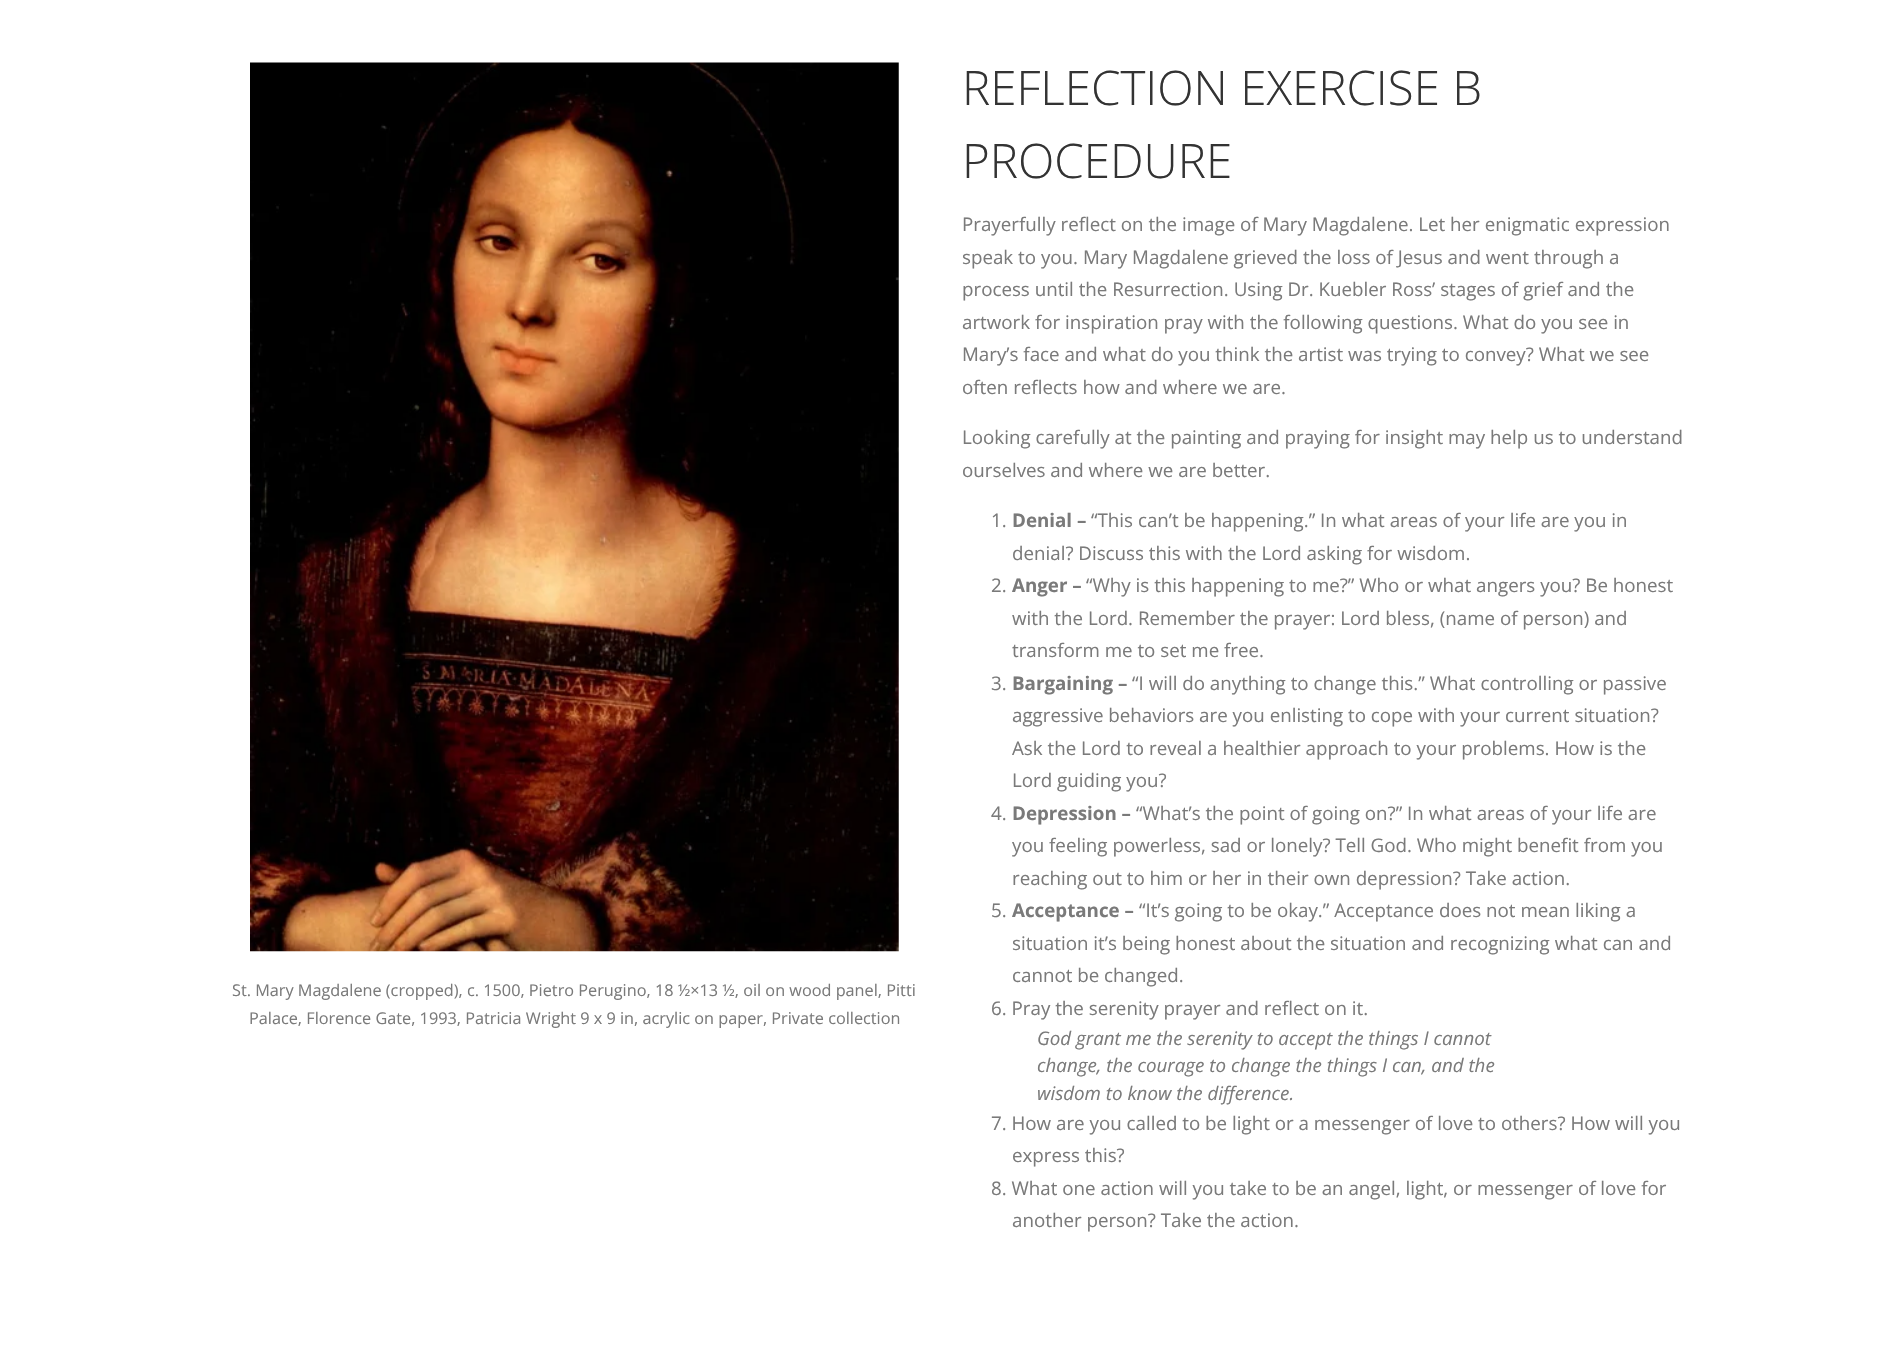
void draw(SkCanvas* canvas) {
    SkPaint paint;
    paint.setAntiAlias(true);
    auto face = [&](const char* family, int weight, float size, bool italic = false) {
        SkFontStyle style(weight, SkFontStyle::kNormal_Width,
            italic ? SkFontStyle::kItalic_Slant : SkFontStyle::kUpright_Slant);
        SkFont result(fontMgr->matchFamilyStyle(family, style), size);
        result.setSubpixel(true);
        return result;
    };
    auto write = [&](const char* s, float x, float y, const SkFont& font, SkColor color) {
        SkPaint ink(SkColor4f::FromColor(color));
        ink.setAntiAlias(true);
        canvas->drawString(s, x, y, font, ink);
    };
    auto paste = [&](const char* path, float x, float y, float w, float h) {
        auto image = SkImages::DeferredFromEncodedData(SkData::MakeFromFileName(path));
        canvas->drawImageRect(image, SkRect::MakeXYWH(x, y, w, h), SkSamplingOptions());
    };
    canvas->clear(SK_ColorWHITE);
    paste("pic1.png", 250, 62, 649, 890);
    auto kFont1 = face("Open Sans", 400, 16.25f);
    write("St. Mary Magdalene (cropped), c. 1500, Pietro Perugino, 18 ½×13 ½, oil on wood panel, Pitti", 232, 996, kFont1, SkColorSetRGB(122, 122, 122));
    write("Palace, Florence Gate, 1993, Patricia Wright 9 x 9 in, acrylic on paper, Private collection", 249, 1024, kFont1, SkColorSetRGB(122, 122, 122));
    auto kFont2 = face("Open Sans", 300, 47.5f);
    write("REFLECTION EXERCISE B", 962, 105, kFont2, SkColorSetRGB(51, 51, 51));
    write("PROCEDURE", 962, 178, kFont2, SkColorSetRGB(51, 51, 51));
    auto kFont3 = face("Open Sans", 400, 18.75f);
    write("Prayerfully reflect on the image of Mary Magdalene. Let her enigmatic expression", 962, 231, kFont3, SkColorSetRGB(122, 122, 122));
    write("speak to you. Mary Magdalene grieved the loss of Jesus and went through a", 962, 264, kFont3, SkColorSetRGB(122, 122, 122));
    write("process until the Resurrection. Using Dr. Kuebler Ross’ stages of grief and the", 962, 296, kFont3, SkColorSetRGB(122, 122, 122));
    write("artwork for inspiration pray with the following questions. What do you see in", 962, 329, kFont3, SkColorSetRGB(122, 122, 122));
    write("Mary’s face and what do you think the artist was trying to convey? What we see", 962, 361, kFont3, SkColorSetRGB(122, 122, 122));
    write("often reflects how and where we are.", 962, 394, kFont3, SkColorSetRGB(122, 122, 122));
    write("Looking carefully at the painting and praying for insight may help us to understand", 962, 444, kFont3, SkColorSetRGB(122, 122, 122));
    write("ourselves and where we are better.", 962, 477, kFont3, SkColorSetRGB(122, 122, 122));
    write("1.", 991, 527, kFont3, SkColorSetRGB(122, 122, 122));
    auto kFont4 = face("Open Sans", 700, 18.75f);
    write("Denial –", 1012, 527, kFont4, SkColorSetRGB(122, 122, 122));
    write("“This can’t be happening.” In what areas of your life are you in", 1091, 527, kFont3, SkColorSetRGB(122, 122, 122));
    write("denial? Discuss this with the Lord asking for wisdom.", 1012, 560, kFont3, SkColorSetRGB(122, 122, 122));
    write("2.", 991, 592, kFont3, SkColorSetRGB(122, 122, 122));
    write("Anger –", 1012, 592, kFont4, SkColorSetRGB(122, 122, 122));
    write("“Why is this happening to me?” Who or what angers you? Be honest", 1086, 592, kFont3, SkColorSetRGB(122, 122, 122));
    write("with the Lord. Remember the prayer: Lord bless, (name of person) and", 1012, 625, kFont3, SkColorSetRGB(122, 122, 122));
    write("transform me to set me free.", 1012, 657, kFont3, SkColorSetRGB(122, 122, 122));
    write("3.", 991, 690, kFont3, SkColorSetRGB(122, 122, 122));
    write("Bargaining –", 1012, 690, kFont4, SkColorSetRGB(122, 122, 122));
    write("“I will do anything to change this.” What controlling or passive", 1132, 690, kFont3, SkColorSetRGB(122, 122, 122));
    write("aggressive behaviors are you enlisting to cope with your current situation?", 1012, 722, kFont3, SkColorSetRGB(122, 122, 122));
    write("Ask the Lord to reveal a healthier approach to your problems. How is the", 1012, 755, kFont3, SkColorSetRGB(122, 122, 122));
    write("Lord guiding you?", 1012, 787, kFont3, SkColorSetRGB(122, 122, 122));
    write("4.", 991, 820, kFont3, SkColorSetRGB(122, 122, 122));
    write("Depression –", 1012, 820, kFont4, SkColorSetRGB(122, 122, 122));
    write("“What’s the point of going on?” In what areas of your life are", 1136, 820, kFont3, SkColorSetRGB(122, 122, 122));
    write("you feeling powerless, sad or lonely? Tell God. Who might benefit from you", 1012, 852, kFont3, SkColorSetRGB(122, 122, 122));
    write("reaching out to him or her in their own depression? Take action.", 1012, 885, kFont3, SkColorSetRGB(122, 122, 122));
    write("5.", 991, 917, kFont3, SkColorSetRGB(122, 122, 122));
    write("Acceptance –", 1012, 917, kFont4, SkColorSetRGB(122, 122, 122));
    write("“It’s going to be okay.” Acceptance does not mean liking a", 1139, 917, kFont3, SkColorSetRGB(122, 122, 122));
    write("situation it’s being honest about the situation and recognizing what can and", 1012, 950, kFont3, SkColorSetRGB(122, 122, 122));
    write("cannot be changed.", 1012, 982, kFont3, SkColorSetRGB(122, 122, 122));
    write("6. Pray the serenity prayer and reflect on it.", 991, 1015, kFont3, SkColorSetRGB(122, 122, 122));
    auto kFont5 = face("Open Sans", 400, 18.75f, true);
    write("God grant me the serenity to accept the things I cannot", 1037, 1045, kFont5, SkColorSetRGB(122, 122, 122));
    write("change, the courage to change the things I can, and the", 1037, 1072, kFont5, SkColorSetRGB(122, 122, 122));
    write("wisdom to know the difference.", 1037, 1100, kFont5, SkColorSetRGB(122, 122, 122));
    write("7. How are you called to be light or a messenger of love to others? How will you", 991, 1130, kFont3, SkColorSetRGB(122, 122, 122));
    write("express this?", 1012, 1162, kFont3, SkColorSetRGB(122, 122, 122));
    write("8. What one action will you take to be an angel, light, or messenger of love for", 991, 1195, kFont3, SkColorSetRGB(122, 122, 122));
    write("another person? Take the action.", 1012, 1227, kFont3, SkColorSetRGB(122, 122, 122));
}
